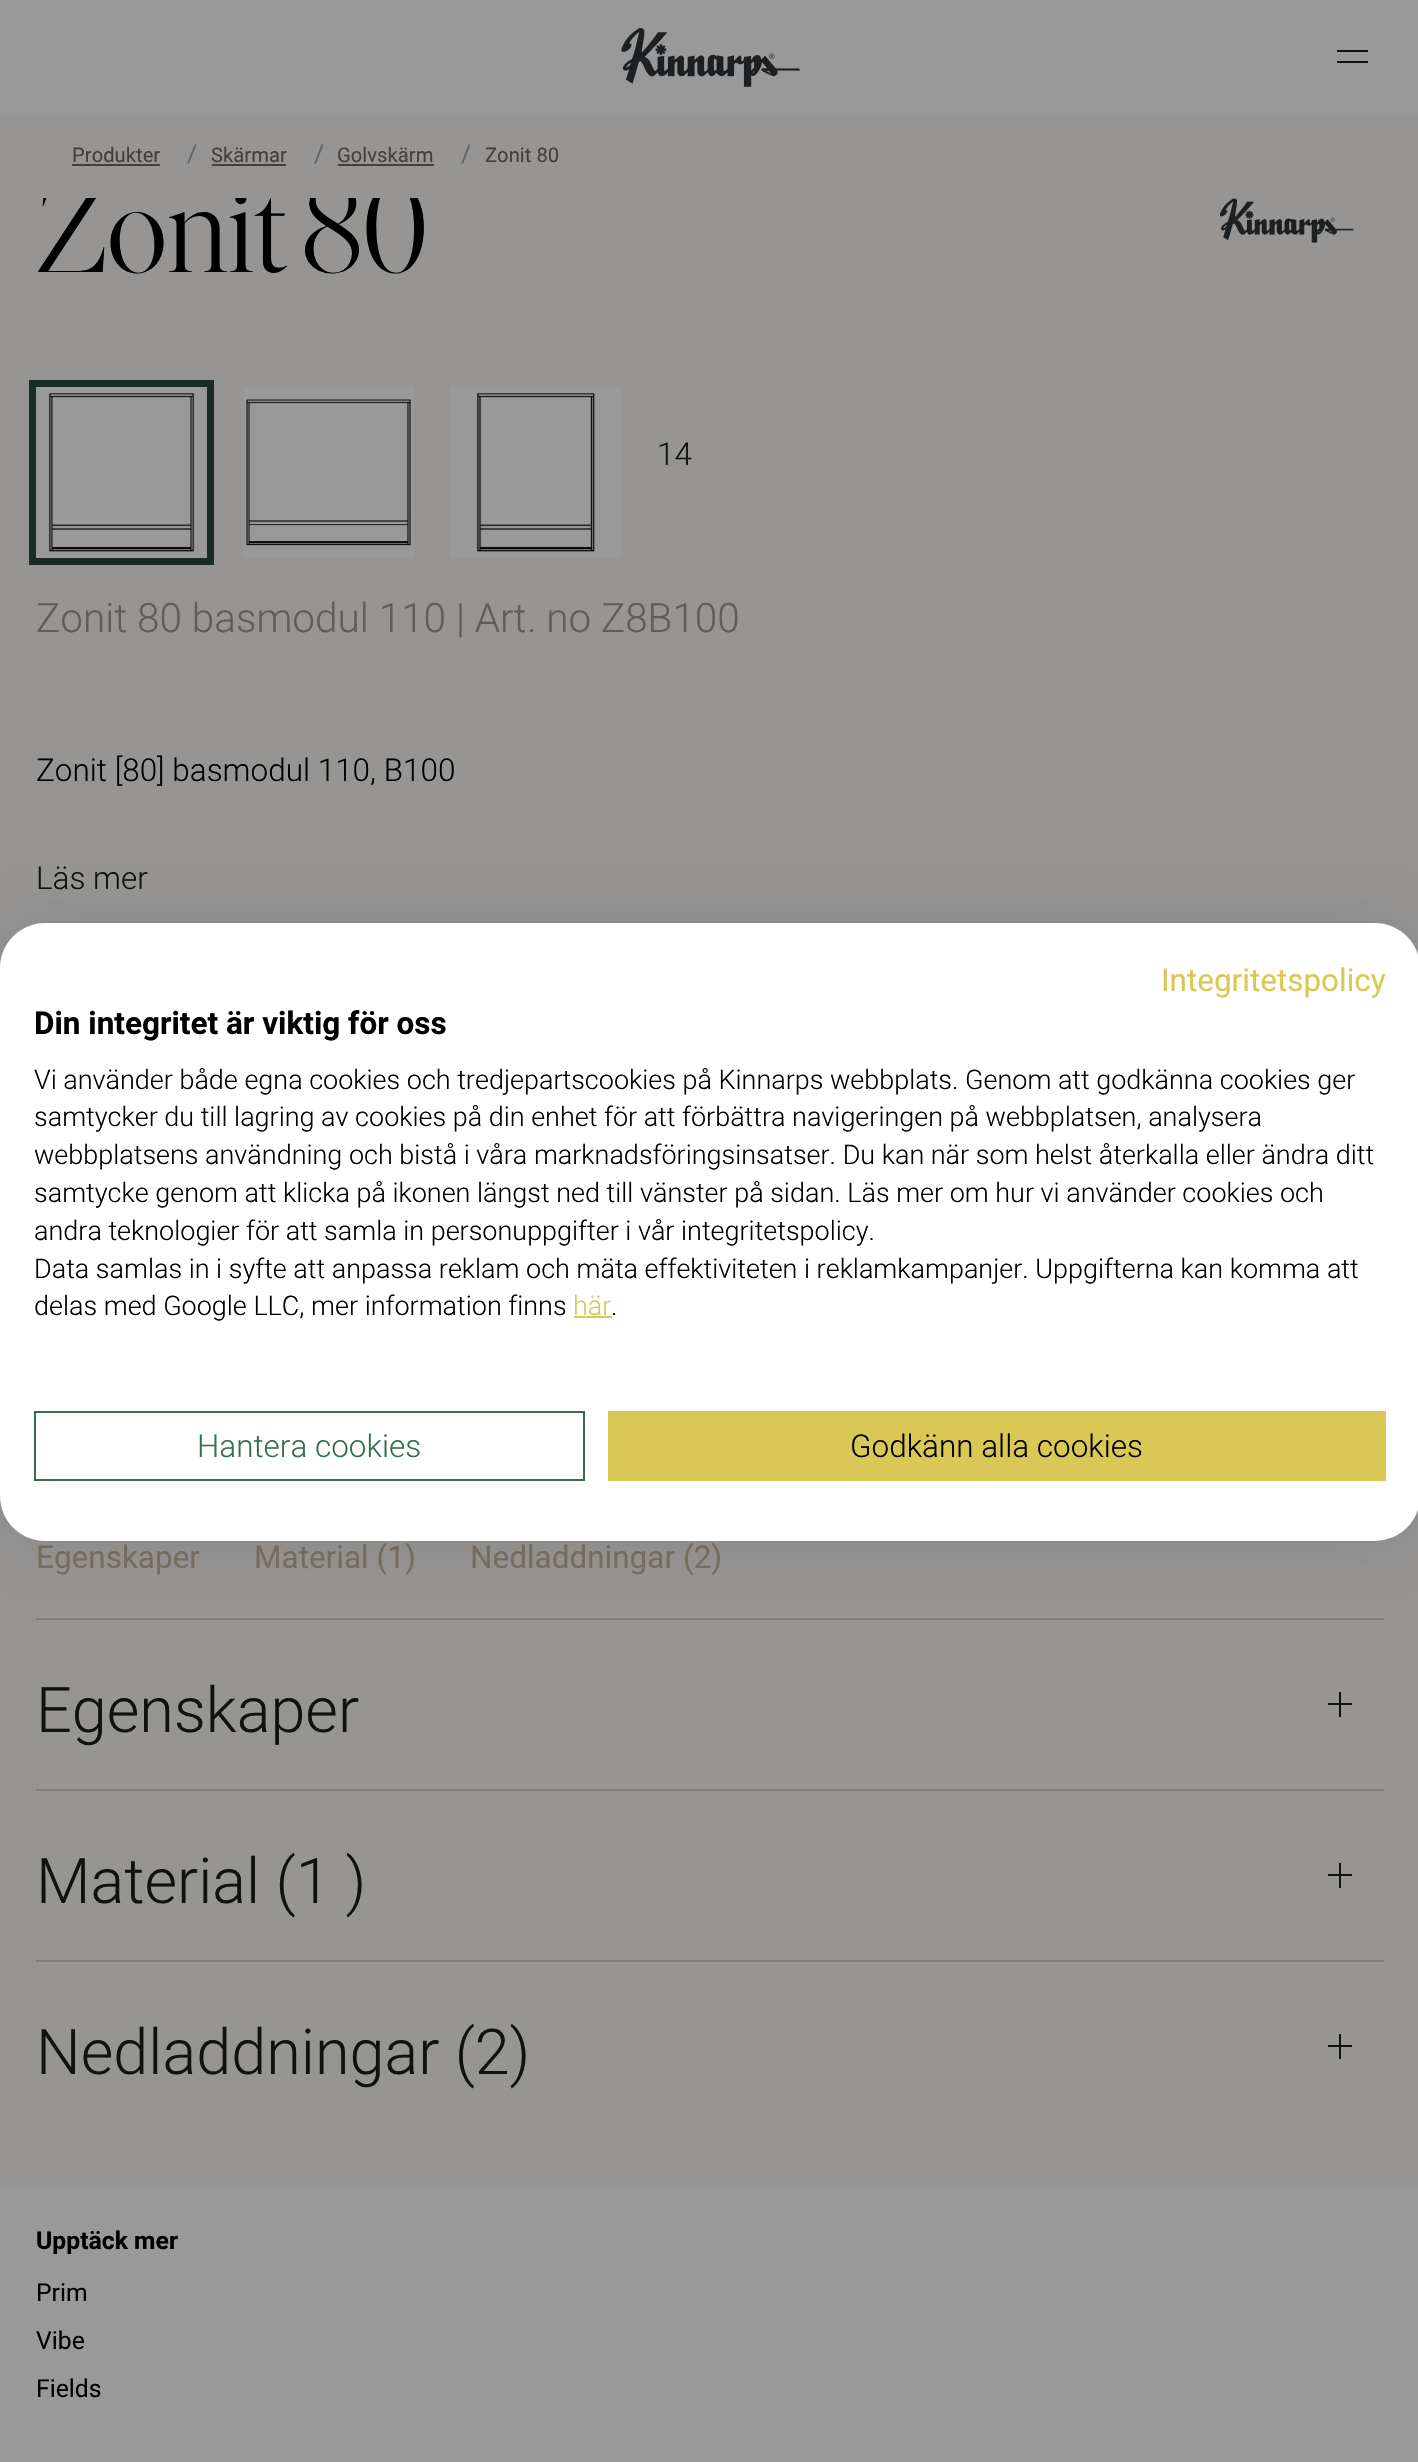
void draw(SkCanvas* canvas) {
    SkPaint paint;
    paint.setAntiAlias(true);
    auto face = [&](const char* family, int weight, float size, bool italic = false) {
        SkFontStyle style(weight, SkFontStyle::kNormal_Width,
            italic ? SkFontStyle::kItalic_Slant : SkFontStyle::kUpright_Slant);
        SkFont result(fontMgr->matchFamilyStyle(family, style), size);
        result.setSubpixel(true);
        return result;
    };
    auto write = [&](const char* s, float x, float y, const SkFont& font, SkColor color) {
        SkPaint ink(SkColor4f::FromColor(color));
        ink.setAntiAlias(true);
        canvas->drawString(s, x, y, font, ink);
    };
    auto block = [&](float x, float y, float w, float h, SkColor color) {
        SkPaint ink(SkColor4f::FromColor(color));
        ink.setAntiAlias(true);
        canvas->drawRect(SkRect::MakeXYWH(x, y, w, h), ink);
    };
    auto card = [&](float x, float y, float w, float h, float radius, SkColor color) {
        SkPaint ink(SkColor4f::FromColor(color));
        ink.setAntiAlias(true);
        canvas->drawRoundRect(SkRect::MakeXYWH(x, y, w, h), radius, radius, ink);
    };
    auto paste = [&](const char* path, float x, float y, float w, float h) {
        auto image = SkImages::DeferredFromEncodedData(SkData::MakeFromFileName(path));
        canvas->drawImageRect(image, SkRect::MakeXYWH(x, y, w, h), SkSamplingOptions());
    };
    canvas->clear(SkColorSetRGB(150, 149, 148));
    block(0, 0, 1418, 113, SkColorSetRGB(153, 153, 153));
    paste("pic1.png", 621, 28, 180, 59);
    block(1337, 50, 31, 2, SkColorSetRGB(17, 17, 16));
    block(1337, 61, 31, 2, SkColorSetRGB(17, 17, 16));
    auto kFont1 = face("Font", 300, 126);
    write("Zonit 80", 36, 272, kFont1, SK_ColorBLACK);
    block(43, 182, 375, 16, SkColorSetRGB(150, 149, 148));
    auto kFont2 = face("Roboto", 400, 20.25f);
    write("Produkter", 72, 162, kFont2, SkColorSetRGB(66, 64, 62));
    block(72, 164, 88, 2, SkColorSetRGB(66, 64, 62));
    auto kFont3 = face("Roboto", 400, 24.75f);
    write("/", 187, 162, kFont3, SkColorSetRGB(97, 100, 101));
    write("Skärmar", 211, 162, kFont2, SkColorSetRGB(66, 64, 62));
    block(212, 164, 74, 2, SkColorSetRGB(66, 64, 62));
    write("/", 314, 162, kFont3, SkColorSetRGB(97, 100, 101));
    write("Golvskärm", 337, 162, kFont2, SkColorSetRGB(66, 64, 62));
    block(338, 164, 96, 2, SkColorSetRGB(66, 64, 62));
    write("/", 461, 162, kFont3, SkColorSetRGB(97, 100, 101));
    write("Zonit 80", 485, 162, kFont2, SkColorSetRGB(66, 64, 62));
    paste("pic2.png", 1220, 198, 134, 45);
    block(36, 387, 171, 171, SkColorSetRGB(153, 153, 153));
    paste("pic3.png", 48, 393, 147, 159);
    paint.setStyle(SkPaint::kStroke_Style);
    paint.setStrokeWidth(7);
    paint.setColor(SkColorSetRGB(28, 43, 37));
    canvas->drawRect(SkRect::MakeXYWH(32.5f, 383.5f, 178, 178), paint);
    block(243, 387, 171, 171, SkColorSetRGB(153, 153, 153));
    paste("pic4.png", 245, 399, 167, 147);
    block(450, 387, 171, 171, SkColorSetRGB(153, 153, 153));
    paste("pic5.png", 476, 393, 120, 159);
    auto kFont4 = face("Roboto", 300, 31.5f);
    write("14", 657, 465, kFont4, SkColorSetRGB(17, 17, 16));
    auto kFont5 = face("Roboto", 300, 40.5f);
    write("Zonit 80 basmodul 110 | Art. no Z8B100", 36, 632, kFont5, SkColorSetRGB(94, 93, 92));
    write("Zonit [80] basmodul 110, B100", 36, 781, kFont4, SK_ColorBLACK);
    write("Läs mer", 36, 889, kFont4, SkColorSetRGB(17, 17, 16));
    auto kFont6 = face("Roboto", 400, 31.5f);
    write("Egenskaper", 36, 1568, kFont6, SkColorSetRGB(120, 111, 98));
    write("Material (1)", 254, 1568, kFont6, SkColorSetRGB(120, 111, 98));
    write("Nedladdningar (2)", 470, 1568, kFont6, SkColorSetRGB(120, 111, 98));
    block(36, 1618, 1348, 2, SkColorSetRGB(131, 125, 116));
    auto kFont7 = face("Roboto", 300, 63);
    write("Egenskaper", 36, 1732, kFont7, SkColorSetRGB(17, 17, 16));
    block(1328, 1703, 24, 2, SkColorSetRGB(17, 17, 16));
    block(1339, 1692, 2, 25, SkColorSetRGB(17, 17, 16));
    block(36, 1789, 1348, 2, SkColorSetRGB(131, 125, 116));
    write("Material (1 )", 36, 1903, kFont7, SkColorSetRGB(17, 17, 16));
    block(1328, 1874, 24, 2, SkColorSetRGB(17, 17, 16));
    block(1339, 1863, 2, 25, SkColorSetRGB(17, 17, 16));
    block(36, 1960, 1348, 2, SkColorSetRGB(131, 125, 116));
    write("Nedladdningar (2)", 36, 2074, kFont7, SkColorSetRGB(17, 17, 16));
    block(1328, 2045, 24, 2, SkColorSetRGB(17, 17, 16));
    block(1339, 2034, 2, 25, SkColorSetRGB(17, 17, 16));
    block(0, 2185, 1418, 277, SkColorSetRGB(153, 153, 153));
    auto kFont8 = face("Roboto", 700, 24.75f);
    write("Upptäck mer", 36, 2249, kFont8, SK_ColorBLACK);
    write("Prim", 36, 2301, kFont3, SK_ColorBLACK);
    write("Vibe", 36, 2349, kFont3, SK_ColorBLACK);
    write("Fields", 36, 2397, kFont3, SK_ColorBLACK);
    paint.setStyle(SkPaint::kFill_Style);
    paint.setColor(SkColorSetARGB(26, 0, 0, 0));
    paint.setMaskFilter(SkMaskFilter::MakeBlur(kNormal_SkBlurStyle, 27));
    canvas->drawRoundRect(SkRect::MakeXYWH(0, 923, 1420, 618), 45, 45, paint);
    paint.setMaskFilter(nullptr);
    card(0, 923, 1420, 618, 45, SK_ColorWHITE);
    write("Integritetspolicy", 1161, 991, kFont6, SkColorSetRGB(217, 199, 86));
    auto kFont9 = face("Roboto", 700, 31.5f);
    write("Din integritet är viktig för oss", 34, 1034, kFont9, SK_ColorBLACK);
    auto kFont10 = face("Roboto", 300, 27);
    write("Vi använder både egna cookies och tredjepartscookies på Kinnarps webbplats. Genom att godkänna cookies ger", 34, 1089, kFont10, SK_ColorBLACK);
    write("samtycker du till lagring av cookies på din enhet för att förbättra navigeringen på webbplatsen, analysera", 34, 1126, kFont10, SK_ColorBLACK);
    write("webbplatsens användning och bistå i våra marknadsföringsinsatser. Du kan när som helst återkalla eller ändra ditt", 34, 1164, kFont10, SK_ColorBLACK);
    write("samtycke genom att klicka på ikonen längst ned till vänster på sidan. Läs mer om hur vi använder cookies och", 34, 1202, kFont10, SK_ColorBLACK);
    write("andra teknologier för att samla in personuppgifter i vår integritetspolicy.", 34, 1240, kFont10, SK_ColorBLACK);
    write("Data samlas in i syfte att anpassa reklam och mäta effektiviteten i reklamkampanjer. Uppgifterna kan komma att", 34, 1278, kFont10, SK_ColorBLACK);
    write("delas med Google LLC, mer information finns", 34, 1315, kFont10, SK_ColorBLACK);
    write("här", 573, 1315, kFont10, SkColorSetRGB(217, 199, 86));
    block(574, 1316, 38, 2, SkColorSetRGB(217, 199, 86));
    write(".", 611, 1315, kFont10, SK_ColorBLACK);
    paint.setStyle(SkPaint::kStroke_Style);
    paint.setStrokeWidth(2);
    paint.setColor(SkColorSetRGB(52, 110, 74));
    canvas->drawRect(SkRect::MakeXYWH(35, 1412, 549, 68), paint);
    write("Hantera cookies", 197, 1457, kFont4, SkColorSetRGB(52, 110, 74));
    block(608, 1411, 778, 70, SkColorSetRGB(217, 199, 86));
    write("Godkänn alla cookies", 850, 1457, kFont4, SK_ColorBLACK);
}
